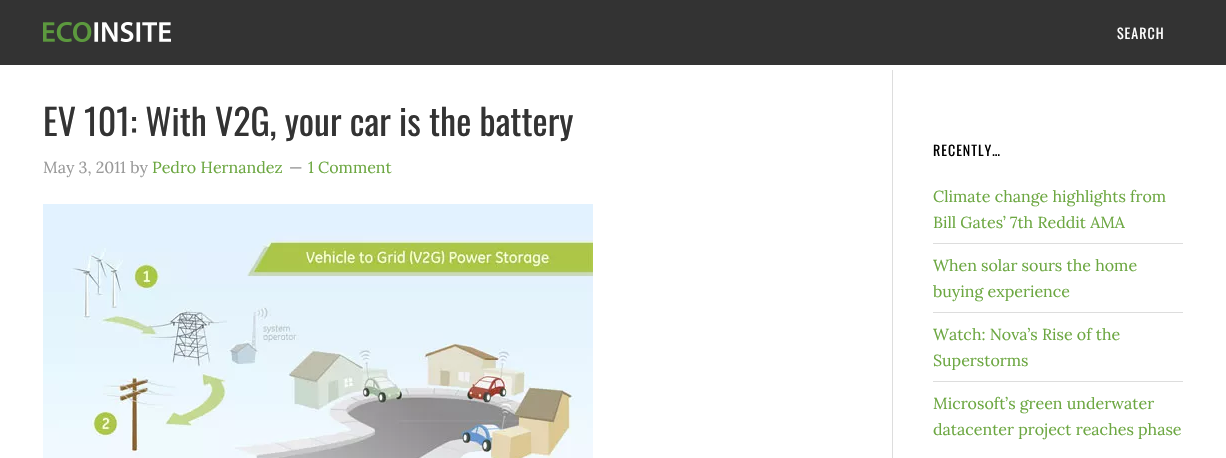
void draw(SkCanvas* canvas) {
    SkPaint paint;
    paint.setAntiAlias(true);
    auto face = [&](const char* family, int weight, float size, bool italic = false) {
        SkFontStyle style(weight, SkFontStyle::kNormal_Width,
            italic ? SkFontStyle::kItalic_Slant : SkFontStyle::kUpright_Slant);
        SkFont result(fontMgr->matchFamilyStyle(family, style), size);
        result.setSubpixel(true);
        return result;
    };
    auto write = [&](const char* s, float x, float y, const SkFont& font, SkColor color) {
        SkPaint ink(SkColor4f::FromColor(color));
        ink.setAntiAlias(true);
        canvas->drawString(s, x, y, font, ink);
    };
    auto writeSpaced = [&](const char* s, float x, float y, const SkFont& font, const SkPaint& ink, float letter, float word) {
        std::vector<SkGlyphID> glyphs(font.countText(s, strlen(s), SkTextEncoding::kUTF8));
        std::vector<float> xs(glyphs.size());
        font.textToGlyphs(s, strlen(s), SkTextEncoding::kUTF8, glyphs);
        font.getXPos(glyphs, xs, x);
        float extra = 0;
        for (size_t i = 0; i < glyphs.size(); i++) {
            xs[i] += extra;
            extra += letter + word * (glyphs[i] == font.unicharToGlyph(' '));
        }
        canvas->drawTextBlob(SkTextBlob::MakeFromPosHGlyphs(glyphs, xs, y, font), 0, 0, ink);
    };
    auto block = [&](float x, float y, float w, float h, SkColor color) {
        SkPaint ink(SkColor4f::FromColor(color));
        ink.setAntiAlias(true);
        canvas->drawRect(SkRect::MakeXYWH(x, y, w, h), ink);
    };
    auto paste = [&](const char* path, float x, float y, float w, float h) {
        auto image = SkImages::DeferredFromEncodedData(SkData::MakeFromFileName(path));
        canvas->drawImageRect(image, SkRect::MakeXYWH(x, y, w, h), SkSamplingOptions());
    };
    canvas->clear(SK_ColorWHITE);
    block(0, 0, 1226, 65, SkColorSetRGB(51, 51, 51));
    paste("pic1.png", 43, 22, 128, 20);
    auto kFont1 = face("Oswald", 400, 14);
    paint.setColor(SK_ColorWHITE);
    writeSpaced("SEARCH", 1117, 39, kFont1, paint, 1, 0);
    block(892, 70, 1, 388, SkColorSetRGB(221, 221, 221));
    auto kFont2 = face("Oswald", 400, 36);
    write("EV 101: With V2G, your car is the battery", 43, 136, kFont2, SkColorSetRGB(51, 51, 51));
    auto kFont3 = face("Lora", 400, 16);
    write("May 3, 2011 by", 43, 173, kFont3, SkColorSetRGB(153, 153, 153));
    write("Pedro Hernandez", 152, 173, kFont3, SkColorSetRGB(108, 167, 65));
    write("—", 289, 173, kFont3, SkColorSetRGB(153, 153, 153));
    write("1 Comment", 308, 173, kFont3, SkColorSetRGB(108, 167, 65));
    paste("pic2.png", 43, 204, 550, 254);
    paint.setColor(SK_ColorBLACK);
    writeSpaced("RECENTLY…", 933, 156, kFont1, paint, 1, 0);
    block(933, 243, 250, 1, SkColorSetRGB(221, 221, 221));
    write("Climate change highlights from", 933, 202, kFont3, SkColorSetRGB(108, 167, 65));
    write("Bill Gates’ 7th Reddit AMA", 933, 228, kFont3, SkColorSetRGB(108, 167, 65));
    block(933, 312, 250, 1, SkColorSetRGB(221, 221, 221));
    write("When solar sours the home", 933, 271, kFont3, SkColorSetRGB(108, 167, 65));
    write("buying experience", 933, 297, kFont3, SkColorSetRGB(108, 167, 65));
    block(933, 381, 250, 1, SkColorSetRGB(221, 221, 221));
    write("Watch: Nova’s Rise of the", 933, 340, kFont3, SkColorSetRGB(108, 167, 65));
    write("Superstorms", 933, 366, kFont3, SkColorSetRGB(108, 167, 65));
    write("Microsoft’s green underwater", 933, 409, kFont3, SkColorSetRGB(108, 167, 65));
    write("datacenter project reaches phase", 933, 435, kFont3, SkColorSetRGB(108, 167, 65));
}
